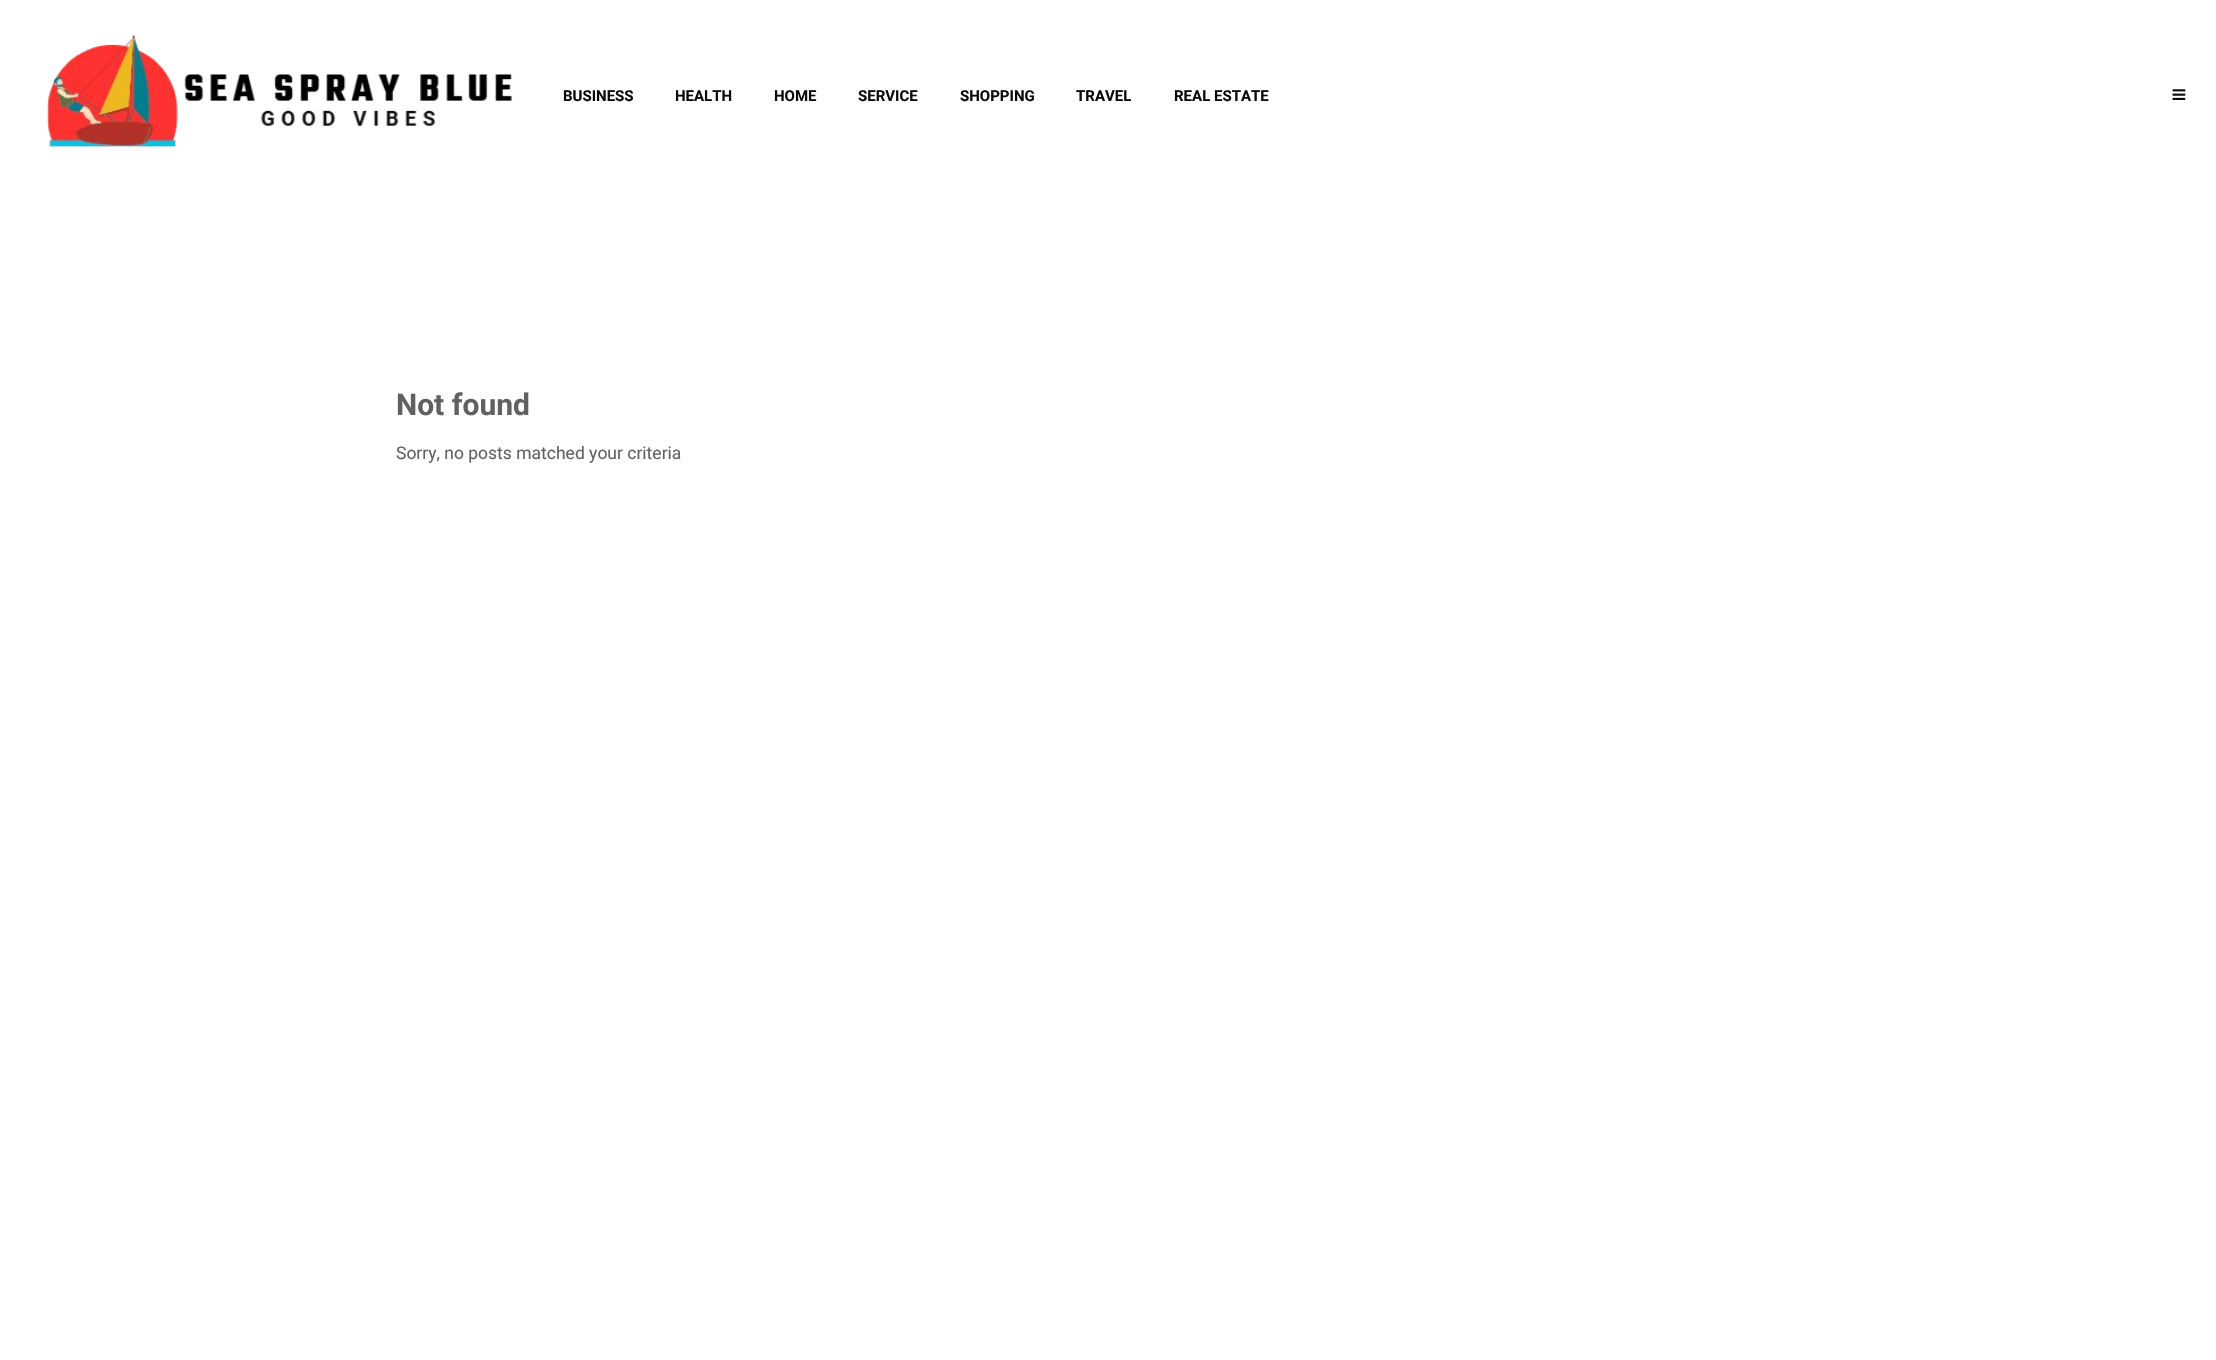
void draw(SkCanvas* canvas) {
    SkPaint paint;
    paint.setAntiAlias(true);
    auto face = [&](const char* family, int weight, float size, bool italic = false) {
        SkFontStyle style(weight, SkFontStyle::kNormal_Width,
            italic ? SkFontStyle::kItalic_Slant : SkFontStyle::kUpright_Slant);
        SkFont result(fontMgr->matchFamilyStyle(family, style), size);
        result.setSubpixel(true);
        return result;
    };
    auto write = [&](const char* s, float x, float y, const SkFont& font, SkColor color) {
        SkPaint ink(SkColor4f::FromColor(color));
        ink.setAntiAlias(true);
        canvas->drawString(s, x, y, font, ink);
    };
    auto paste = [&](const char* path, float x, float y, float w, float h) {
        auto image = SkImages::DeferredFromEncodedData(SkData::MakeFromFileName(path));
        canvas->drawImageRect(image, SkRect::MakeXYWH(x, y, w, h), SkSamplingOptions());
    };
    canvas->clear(SK_ColorWHITE);
    paste("pic1.png", 47, 34, 466, 114);
    auto kFont1 = face("Roboto", 700, 15);
    write("BUSINESS", 563, 101, kFont1, SkColorSetRGB(10, 10, 10));
    write("HEALTH", 675, 101, kFont1, SkColorSetRGB(10, 10, 10));
    write("HOME", 774, 101, kFont1, SkColorSetRGB(10, 10, 10));
    write("SERVICE", 858, 101, kFont1, SkColorSetRGB(10, 10, 10));
    write("SHOPPING", 960, 101, kFont1, SkColorSetRGB(10, 10, 10));
    write("TRAVEL", 1076, 101, kFont1, SkColorSetRGB(10, 10, 10));
    write("REAL ESTATE", 1174, 101, kFont1, SkColorSetRGB(10, 10, 10));
    paste("pic2.png", 2172, 89, 14, 11);
    auto kFont2 = face("Roboto", 700, 30);
    write("Not found", 396, 415, kFont2, SkColorSetRGB(97, 97, 97));
    auto kFont3 = face("Roboto", 400, 17.5f);
    write("Sorry, no posts matched your criteria", 396, 459, kFont3, SkColorSetRGB(97, 97, 97));
}
